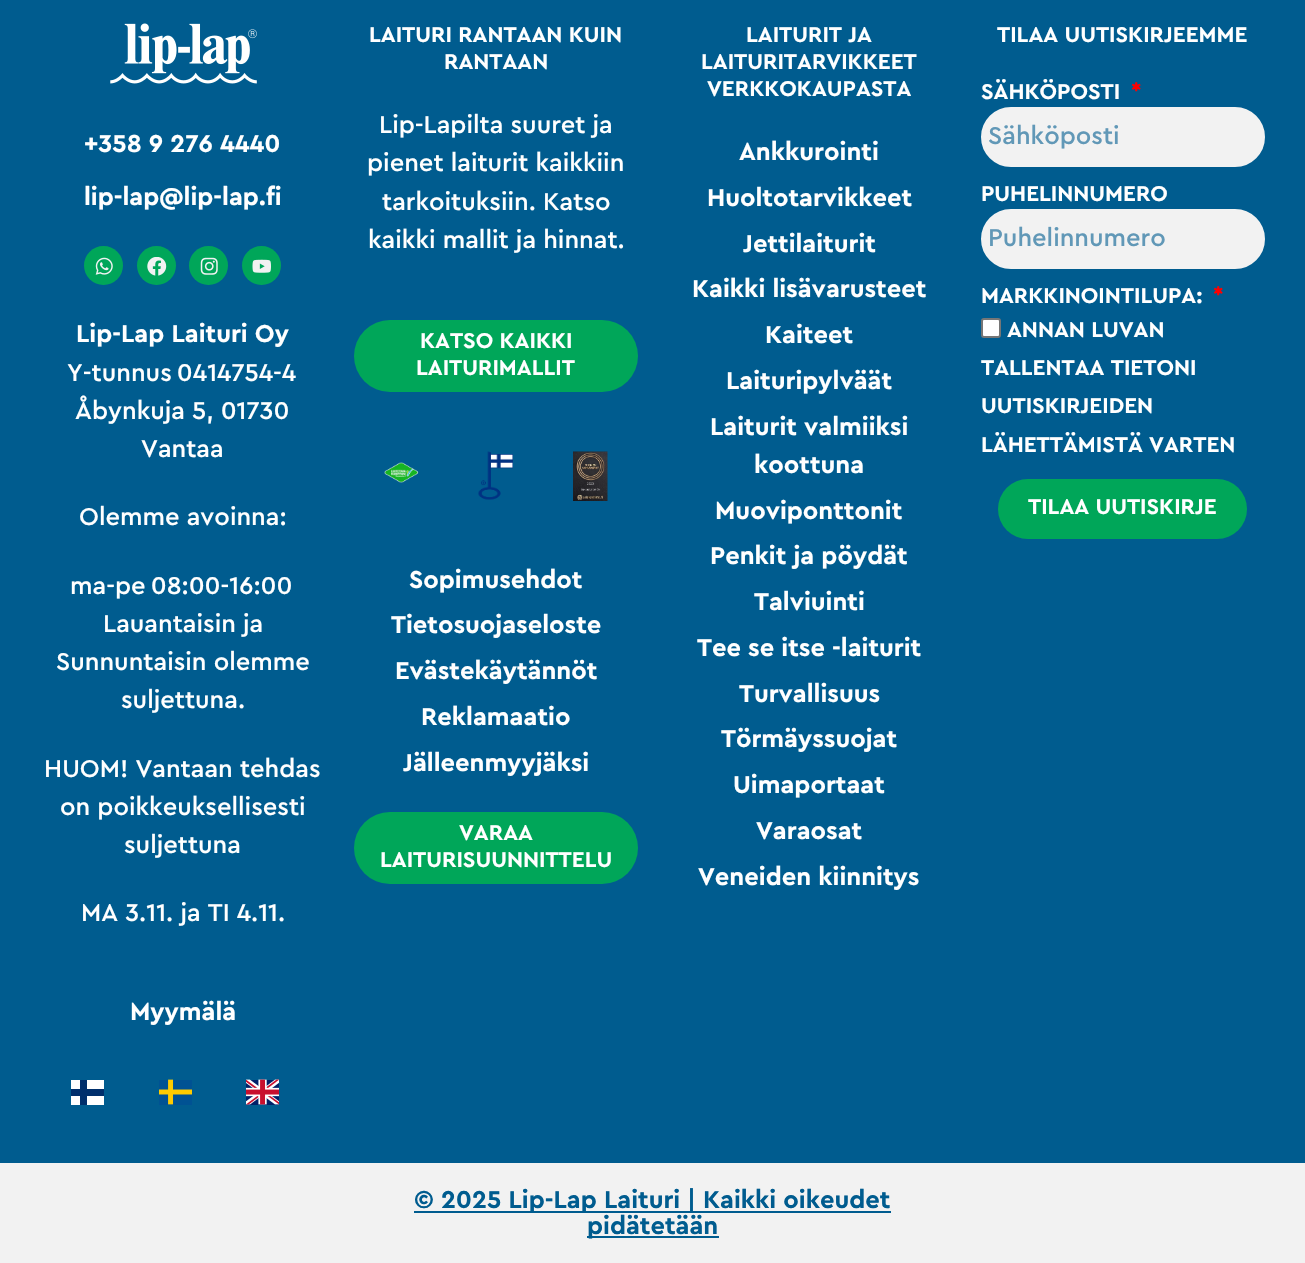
void draw(SkCanvas* canvas) {
    SkPaint paint;
    paint.setAntiAlias(true);
    auto face = [&](const char* family, int weight, float size, bool italic = false) {
        SkFontStyle style(weight, SkFontStyle::kNormal_Width,
            italic ? SkFontStyle::kItalic_Slant : SkFontStyle::kUpright_Slant);
        SkFont result(fontMgr->matchFamilyStyle(family, style), size);
        result.setSubpixel(true);
        return result;
    };
    auto write = [&](const char* s, float x, float y, const SkFont& font, SkColor color) {
        SkPaint ink(SkColor4f::FromColor(color));
        ink.setAntiAlias(true);
        canvas->drawString(s, x, y, font, ink);
    };
    auto writeSpaced = [&](const char* s, float x, float y, const SkFont& font, const SkPaint& ink, float letter, float word) {
        std::vector<SkGlyphID> glyphs(font.countText(s, strlen(s), SkTextEncoding::kUTF8));
        std::vector<float> xs(glyphs.size());
        font.textToGlyphs(s, strlen(s), SkTextEncoding::kUTF8, glyphs);
        font.getXPos(glyphs, xs, x);
        float extra = 0;
        for (size_t i = 0; i < glyphs.size(); i++) {
            xs[i] += extra;
            extra += letter + word * (glyphs[i] == font.unicharToGlyph(' '));
        }
        canvas->drawTextBlob(SkTextBlob::MakeFromPosHGlyphs(glyphs, xs, y, font), 0, 0, ink);
    };
    auto block = [&](float x, float y, float w, float h, SkColor color) {
        SkPaint ink(SkColor4f::FromColor(color));
        ink.setAntiAlias(true);
        canvas->drawRect(SkRect::MakeXYWH(x, y, w, h), ink);
    };
    auto card = [&](float x, float y, float w, float h, float radius, SkColor color) {
        SkPaint ink(SkColor4f::FromColor(color));
        ink.setAntiAlias(true);
        canvas->drawRoundRect(SkRect::MakeXYWH(x, y, w, h), radius, radius, ink);
    };
    auto paste = [&](const char* path, float x, float y, float w, float h) {
        auto image = SkImages::DeferredFromEncodedData(SkData::MakeFromFileName(path));
        canvas->drawImageRect(image, SkRect::MakeXYWH(x, y, w, h), SkSamplingOptions());
    };
    canvas->clear(SkColorSetRGB(242, 242, 242));
    block(0, 0, 1305, 1163, SkColorSetRGB(0, 92, 143));
    paste("pic1.png", 110, 23, 147, 61);
    auto kFont1 = face("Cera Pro", 700, 25.5f);
    write("+358 9 276 4440", 84, 152, kFont1, SK_ColorWHITE);
    write("lip-lap@lip-lap.fi", 84, 205, kFont1, SK_ColorWHITE);
    paint.setColor(SkColorSetRGB(0, 166, 89));
    canvas->drawCircle(103.5f, 265.5f, 19.5f, paint);
    paste("pic2.png", 95, 257, 18, 18);
    canvas->drawCircle(156.5f, 265.5f, 19.5f, paint);
    paste("pic3.png", 147, 257, 20, 19);
    canvas->drawCircle(208.5f, 265.5f, 19.5f, paint);
    paste("pic4.png", 200, 257, 18, 18);
    canvas->drawCircle(261.5f, 265.5f, 19.5f, paint);
    paste("pic5.png", 252, 259, 19, 14);
    write("Lip-Lap Laituri Oy", 76, 342, kFont1, SK_ColorWHITE);
    auto kFont2 = face("Cera Pro", 500, 25.5f);
    paint.setColor(SK_ColorWHITE);
    writeSpaced("Y-tunnus 0414754-4", 67, 381, kFont2, paint, 0, -2);
    write("Åbynkuja 5, 01730", 75, 419, kFont2, SK_ColorWHITE);
    write("Vantaa", 141, 457, kFont2, SK_ColorWHITE);
    write("Olemme avoinna:", 79, 525, kFont2, SK_ColorWHITE);
    writeSpaced("ma-pe 08:00-16:00", 70, 594, kFont2, paint, 0, -2);
    write("Lauantaisin ja", 103, 632, kFont2, SK_ColorWHITE);
    write("Sunnuntaisin olemme", 56, 670, kFont2, SK_ColorWHITE);
    write("suljettuna.", 121, 708, kFont2, SK_ColorWHITE);
    write("HUOM! Vantaan tehdas", 44, 777, kFont2, SK_ColorWHITE);
    write("on poikkeuksellisesti", 60, 815, kFont2, SK_ColorWHITE);
    write("suljettuna", 124, 853, kFont2, SK_ColorWHITE);
    write("MA 3.11. ja TI 4.11.", 81, 921, kFont2, SK_ColorWHITE);
    write("Myymälä", 130, 1020, kFont1, SK_ColorWHITE);
    block(71, 1080, 33, 25, SK_ColorWHITE);
    block(71, 1089, 33, 7, SkColorSetRGB(0, 47, 108));
    block(80, 1080, 7, 25, SkColorSetRGB(0, 47, 108));
    paste("pic6.png", 159, 1079, 33, 26);
    paste("pic7.png", 246, 1079, 33, 26);
    auto kFont3 = face("Cera Pro", 700, 22.5f);
    write("LAITURI RANTAAN KUIN", 369, 42, kFont3, SK_ColorWHITE);
    write("RANTAAN", 444, 69, kFont3, SK_ColorWHITE);
    write("Lip-Lapilta suuret ja", 379, 133, kFont2, SK_ColorWHITE);
    write("pienet laiturit kaikkiin", 367, 171, kFont2, SK_ColorWHITE);
    write("tarkoituksiin. Katso", 382, 210, kFont2, SK_ColorWHITE);
    write("kaikki mallit ja hinnat.", 368, 248, kFont2, SK_ColorWHITE);
    card(354, 320, 284, 72, 36, SkColorSetRGB(0, 166, 89));
    write("KATSO KAIKKI", 420, 348, kFont3, SK_ColorWHITE);
    write("LAITURIMALLIT", 416, 375, kFont3, SK_ColorWHITE);
    paste("pic8.png", 384, 462, 35, 21);
    paste("pic9.png", 478, 451, 35, 49);
    paste("pic10.png", 573, 451, 35, 50);
    write("Sopimusehdot", 409, 588, kFont1, SK_ColorWHITE);
    write("Tietosuojaseloste", 391, 633, kFont1, SK_ColorWHITE);
    write("Evästekäytännöt", 395, 679, kFont1, SK_ColorWHITE);
    write("Reklamaatio", 421, 725, kFont1, SK_ColorWHITE);
    write("Jälleenmyyjäksi", 403, 771, kFont1, SK_ColorWHITE);
    card(354, 812, 284, 72, 36, SkColorSetRGB(0, 166, 89));
    write("VARAA", 459, 840, kFont3, SK_ColorWHITE);
    write("LAITURISUUNNITTELU", 380, 867, kFont3, SK_ColorWHITE);
    write("LAITURIT JA", 746, 42, kFont3, SK_ColorWHITE);
    write("LAITURITARVIKKEET", 701, 69, kFont3, SK_ColorWHITE);
    write("VERKKOKAUPASTA", 707, 96, kFont3, SK_ColorWHITE);
    write("Ankkurointi", 739, 160, kFont1, SK_ColorWHITE);
    write("Huoltotarvikkeet", 707, 206, kFont1, SK_ColorWHITE);
    write("Jettilaiturit", 743, 252, kFont1, SK_ColorWHITE);
    write("Kaikki lisävarusteet", 692, 297, kFont1, SK_ColorWHITE);
    write("Kaiteet", 765, 343, kFont1, SK_ColorWHITE);
    write("Laituripylväät", 726, 389, kFont1, SK_ColorWHITE);
    write("Laiturit valmiiksi", 710, 435, kFont1, SK_ColorWHITE);
    write("koottuna", 754, 473, kFont1, SK_ColorWHITE);
    write("Muoviponttonit", 715, 519, kFont1, SK_ColorWHITE);
    write("Penkit ja pöydät", 710, 564, kFont1, SK_ColorWHITE);
    write("Talviuinti", 754, 610, kFont1, SK_ColorWHITE);
    write("Tee se itse -laiturit", 697, 656, kFont1, SK_ColorWHITE);
    write("Turvallisuus", 739, 702, kFont1, SK_ColorWHITE);
    write("Törmäyssuojat", 721, 747, kFont1, SK_ColorWHITE);
    write("Uimaportaat", 733, 793, kFont1, SK_ColorWHITE);
    write("Varaosat", 756, 839, kFont1, SK_ColorWHITE);
    write("Veneiden kiinnitys", 698, 885, kFont1, SK_ColorWHITE);
    write("TILAA UUTISKIRJEEMME", 997, 42, kFont3, SK_ColorWHITE);
    write("SÄHKÖPOSTI", 981, 99, kFont3, SK_ColorWHITE);
    write("*", 1131, 99, kFont3, SkColorSetRGB(255, 0, 0));
    paint.setColor(SkColorSetRGB(242, 242, 242));
    canvas->drawRoundRect(SkRect::MakeXYWH(982, 108, 282, 58), 29, 29, paint);
    paint.setStyle(SkPaint::kStroke_Style);
    paint.setStrokeWidth(2);
    canvas->drawRoundRect(SkRect::MakeXYWH(982, 108, 282, 58), 29, 29, paint);
    write("Sähköposti", 988, 144, kFont2, SkColorSetRGB(97, 152, 183));
    write("PUHELINNUMERO", 981, 201, kFont3, SK_ColorWHITE);
    paint.setStyle(SkPaint::kFill_Style);
    canvas->drawRoundRect(SkRect::MakeXYWH(982, 210, 282, 58), 29, 29, paint);
    paint.setStyle(SkPaint::kStroke_Style);
    canvas->drawRoundRect(SkRect::MakeXYWH(982, 210, 282, 58), 29, 29, paint);
    write("Puhelinnumero", 988, 246, kFont2, SkColorSetRGB(97, 152, 183));
    write("MARKKINOINTILUPA:", 981, 303, kFont3, SK_ColorWHITE);
    write("*", 1213, 303, kFont3, SkColorSetRGB(255, 0, 0));
    paint.setStyle(SkPaint::kFill_Style);
    paint.setColor(SK_ColorWHITE);
    canvas->drawRoundRect(SkRect::MakeXYWH(982, 319, 18, 18), 2, 2, paint);
    paint.setStyle(SkPaint::kStroke_Style);
    paint.setColor(SkColorSetRGB(118, 118, 118));
    canvas->drawRoundRect(SkRect::MakeXYWH(982, 319, 18, 18), 2, 2, paint);
    write("ANNAN LUVAN", 1007, 337, kFont3, SK_ColorWHITE);
    write("TALLENTAA TIETONI", 981, 375, kFont3, SK_ColorWHITE);
    write("UUTISKIRJEIDEN", 981, 413, kFont3, SK_ColorWHITE);
    write("LÄHETTÄMISTÄ VARTEN", 981, 452, kFont3, SK_ColorWHITE);
    card(998, 479, 249, 60, 30, SkColorSetRGB(0, 166, 89));
    write("TILAA UUTISKIRJE", 1028, 514, kFont3, SK_ColorWHITE);
    block(414, 1211, 477, 2, SkColorSetRGB(0, 92, 143));
    write("© 2025 Lip-Lap Laituri | Kaikki oikeudet", 414, 1208, kFont1, SkColorSetRGB(0, 92, 143));
    block(587, 1236, 132, 2, SkColorSetRGB(0, 92, 143));
    write("pidätetään", 587, 1234, kFont1, SkColorSetRGB(0, 92, 143));
}
